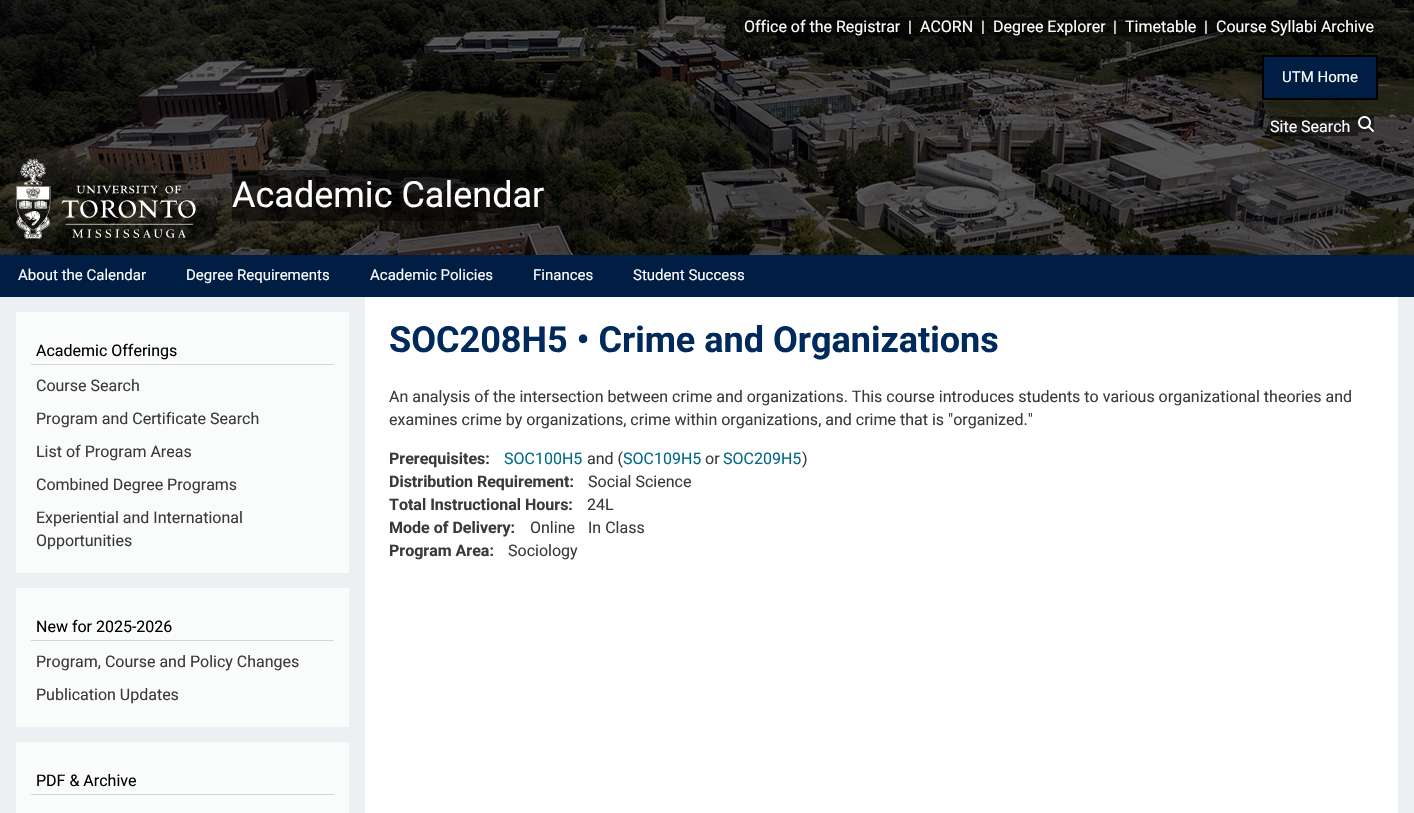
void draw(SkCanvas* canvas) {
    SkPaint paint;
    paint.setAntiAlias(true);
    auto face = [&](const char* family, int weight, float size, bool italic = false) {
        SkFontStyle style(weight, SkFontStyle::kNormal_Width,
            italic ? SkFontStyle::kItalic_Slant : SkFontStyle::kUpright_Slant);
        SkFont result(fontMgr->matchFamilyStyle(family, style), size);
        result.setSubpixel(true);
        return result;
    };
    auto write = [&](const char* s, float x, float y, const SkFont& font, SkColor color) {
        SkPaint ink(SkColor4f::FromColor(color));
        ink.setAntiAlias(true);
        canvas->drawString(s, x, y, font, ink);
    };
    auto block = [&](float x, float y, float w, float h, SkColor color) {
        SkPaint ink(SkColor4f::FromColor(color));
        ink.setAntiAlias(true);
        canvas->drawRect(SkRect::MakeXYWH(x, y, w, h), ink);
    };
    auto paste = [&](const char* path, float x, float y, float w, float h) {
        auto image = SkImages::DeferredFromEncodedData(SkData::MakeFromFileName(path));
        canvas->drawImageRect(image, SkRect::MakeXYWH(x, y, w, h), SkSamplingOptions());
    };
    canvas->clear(SK_ColorWHITE);
    paste("pic1.png", 0, 0, 1414, 255);
    block(744, 17, 156, 19, SkColorSetARGB(128, 0, 0, 0));
    auto kFont1 = face("Roboto", 400, 16);
    write("Office of the Registrar", 744, 32, kFont1, SK_ColorWHITE);
    block(900, 17, 20, 19, SkColorSetARGB(128, 0, 0, 0));
    write("|", 908, 32, kFont1, SK_ColorWHITE);
    block(920, 17, 53, 19, SkColorSetARGB(128, 0, 0, 0));
    write("ACORN", 920, 32, kFont1, SK_ColorWHITE);
    block(973, 17, 20, 19, SkColorSetARGB(128, 0, 0, 0));
    write("|", 981, 32, kFont1, SK_ColorWHITE);
    block(993, 17, 112, 19, SkColorSetARGB(128, 0, 0, 0));
    write("Degree Explorer", 993, 32, kFont1, SK_ColorWHITE);
    block(1105, 17, 20, 19, SkColorSetARGB(128, 0, 0, 0));
    write("|", 1113, 32, kFont1, SK_ColorWHITE);
    block(1125, 17, 71, 19, SkColorSetARGB(128, 0, 0, 0));
    write("Timetable", 1125, 32, kFont1, SK_ColorWHITE);
    block(1196, 17, 20, 19, SkColorSetARGB(128, 0, 0, 0));
    write("|", 1204, 32, kFont1, SK_ColorWHITE);
    block(1216, 17, 158, 19, SkColorSetARGB(128, 0, 0, 0));
    write("Course Syllabi Archive", 1216, 32, kFont1, SK_ColorWHITE);
    paint.setColor(SkColorSetRGB(0, 30, 67));
    canvas->drawRect(SkRect::MakeXYWH(1263, 56, 114, 43), paint);
    paint.setStyle(SkPaint::kStroke_Style);
    paint.setStrokeWidth(2);
    paint.setColor(SK_ColorBLACK);
    canvas->drawRect(SkRect::MakeXYWH(1263, 56, 114, 43), paint);
    auto kFont2 = face("Roboto", 400, 15);
    write("UTM Home", 1282, 82, kFont2, SK_ColorWHITE);
    block(1270, 117, 88, 19, SkColorSetARGB(128, 0, 0, 0));
    write("Site Search", 1270, 132, kFont1, SK_ColorWHITE);
    block(1358, 116, 16, 16, SkColorSetARGB(128, 0, 0, 0));
    paste("pic2.png", 1358, 116, 16, 16);
    paste("pic3.png", 16, 159, 180, 80);
    block(232, 170, 312, 51, SkColorSetARGB(128, 0, 0, 0));
    auto kFont3 = face("Roboto", 400, 36);
    write("Academic Calendar", 232, 207, kFont3, SK_ColorWHITE);
    block(0, 255, 1414, 42, SkColorSetRGB(0, 30, 67));
    write("About the Calendar", 18, 280, kFont2, SK_ColorWHITE);
    write("Degree Requirements", 186, 280, kFont2, SK_ColorWHITE);
    write("Academic Policies", 370, 280, kFont2, SK_ColorWHITE);
    write("Finances", 533, 280, kFont2, SK_ColorWHITE);
    write("Student Success", 633, 280, kFont2, SK_ColorWHITE);
    block(0, 297, 1414, 516, SkColorSetRGB(236, 240, 243));
    block(16, 312, 333, 261, SkColorSetRGB(250, 251, 251));
    block(31, 364, 303, 1, SkColorSetRGB(214, 214, 214));
    write("Academic Offerings", 36, 356, kFont1, SK_ColorBLACK);
    write("Course Search", 36, 391, kFont1, SkColorSetRGB(58, 58, 58));
    write("Program and Certificate Search", 36, 424, kFont1, SkColorSetRGB(58, 58, 58));
    write("List of Program Areas", 36, 457, kFont1, SkColorSetRGB(58, 58, 58));
    write("Combined Degree Programs", 36, 490, kFont1, SkColorSetRGB(58, 58, 58));
    write("Experiential and International", 36, 523, kFont1, SkColorSetRGB(58, 58, 58));
    write("Opportunities", 36, 546, kFont1, SkColorSetRGB(58, 58, 58));
    block(16, 588, 333, 139, SkColorSetRGB(250, 251, 251));
    block(31, 640, 303, 1, SkColorSetRGB(214, 214, 214));
    write("New for 2025-2026", 36, 632, kFont1, SK_ColorBLACK);
    write("Program, Course and Policy Changes", 36, 667, kFont1, SkColorSetRGB(58, 58, 58));
    write("Publication Updates", 36, 700, kFont1, SkColorSetRGB(58, 58, 58));
    block(16, 742, 333, 71, SkColorSetRGB(250, 251, 251));
    block(31, 794, 303, 1, SkColorSetRGB(214, 214, 214));
    write("PDF & Archive", 36, 786, kFont1, SK_ColorBLACK);
    block(365, 297, 1033, 516, SK_ColorWHITE);
    auto kFont4 = face("Roboto", 700, 36);
    write("SOC208H5 • Crime and Organizations", 389, 352, kFont4, SkColorSetRGB(0, 42, 92));
    write("An analysis of the intersection between crime and organizations. This course introduces students to various organizational theories and", 389, 402, kFont1, SkColorSetRGB(58, 58, 58));
    write("examines crime by organizations, crime within organizations, and crime that is \"organized.\"", 389, 425, kFont1, SkColorSetRGB(58, 58, 58));
    auto kFont5 = face("Roboto", 700, 16);
    write("Prerequisites:", 389, 464, kFont5, SkColorSetRGB(58, 58, 58));
    write("SOC100H5", 504, 464, kFont1, SkColorSetRGB(1, 106, 138));
    write("and (", 587, 464, kFont1, SkColorSetRGB(58, 58, 58));
    write("SOC109H5", 623, 464, kFont1, SkColorSetRGB(1, 106, 138));
    write("or", 705, 464, kFont1, SkColorSetRGB(58, 58, 58));
    write("SOC209H5", 723, 464, kFont1, SkColorSetRGB(1, 106, 138));
    write(")", 802, 464, kFont1, SkColorSetRGB(58, 58, 58));
    write("Distribution Requirement:", 389, 487, kFont5, SkColorSetRGB(58, 58, 58));
    write("Social Science", 588, 487, kFont1, SkColorSetRGB(58, 58, 58));
    write("Total Instructional Hours:", 389, 510, kFont5, SkColorSetRGB(58, 58, 58));
    write("24L", 587, 510, kFont1, SkColorSetRGB(58, 58, 58));
    write("Mode of Delivery:", 389, 533, kFont5, SkColorSetRGB(58, 58, 58));
    write("Online", 530, 533, kFont1, SkColorSetRGB(58, 58, 58));
    write("In Class", 588, 533, kFont1, SkColorSetRGB(58, 58, 58));
    write("Program Area:", 389, 556, kFont5, SkColorSetRGB(58, 58, 58));
    write("Sociology", 508, 556, kFont1, SkColorSetRGB(58, 58, 58));
}
